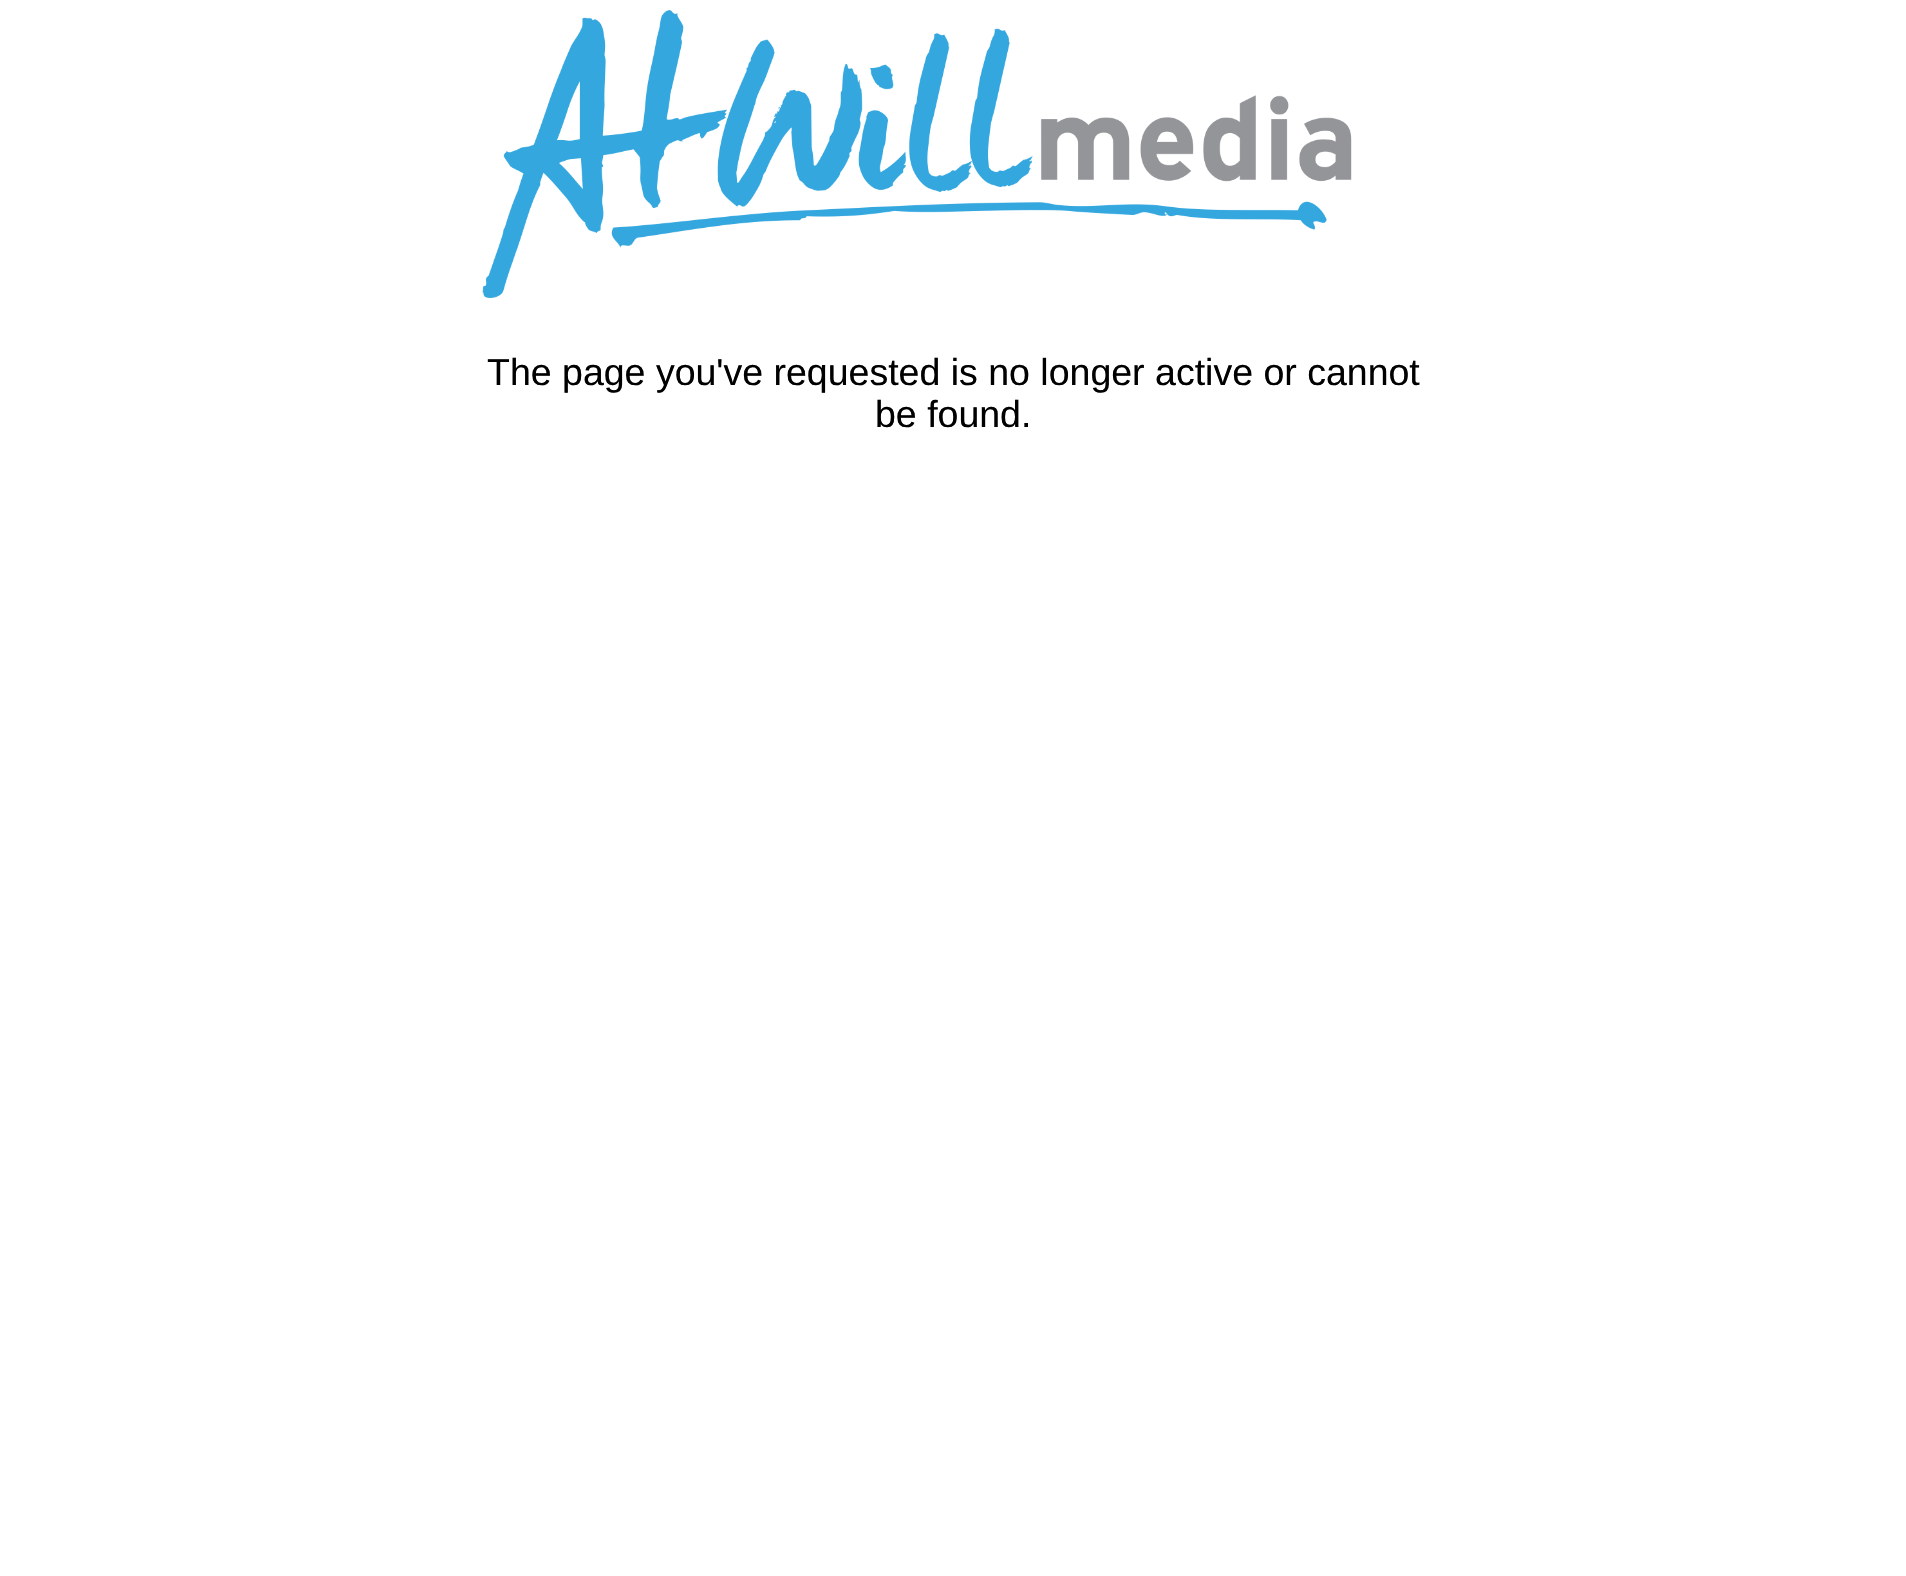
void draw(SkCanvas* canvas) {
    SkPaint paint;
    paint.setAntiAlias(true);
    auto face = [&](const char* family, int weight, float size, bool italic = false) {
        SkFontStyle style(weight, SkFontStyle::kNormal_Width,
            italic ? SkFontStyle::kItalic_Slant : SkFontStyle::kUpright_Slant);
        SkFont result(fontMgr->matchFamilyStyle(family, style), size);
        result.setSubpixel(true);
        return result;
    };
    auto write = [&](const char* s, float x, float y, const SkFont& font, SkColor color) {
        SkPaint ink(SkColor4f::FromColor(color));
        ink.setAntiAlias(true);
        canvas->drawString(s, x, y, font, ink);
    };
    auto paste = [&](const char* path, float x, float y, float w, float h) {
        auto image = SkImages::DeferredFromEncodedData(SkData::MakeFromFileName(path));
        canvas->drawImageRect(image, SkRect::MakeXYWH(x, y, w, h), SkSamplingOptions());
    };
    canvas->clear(SK_ColorWHITE);
    paste("pic1.png", 482, 10, 870, 288);
    auto kFont1 = face("Liberation Sans", 400, 37.5f);
    write("The page you've requested is no longer active or cannot", 487, 385, kFont1, SK_ColorBLACK);
    write("be found.", 875, 427, kFont1, SK_ColorBLACK);
}
